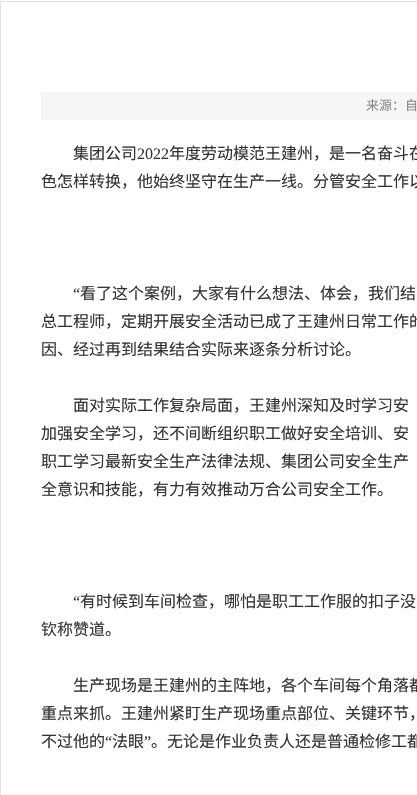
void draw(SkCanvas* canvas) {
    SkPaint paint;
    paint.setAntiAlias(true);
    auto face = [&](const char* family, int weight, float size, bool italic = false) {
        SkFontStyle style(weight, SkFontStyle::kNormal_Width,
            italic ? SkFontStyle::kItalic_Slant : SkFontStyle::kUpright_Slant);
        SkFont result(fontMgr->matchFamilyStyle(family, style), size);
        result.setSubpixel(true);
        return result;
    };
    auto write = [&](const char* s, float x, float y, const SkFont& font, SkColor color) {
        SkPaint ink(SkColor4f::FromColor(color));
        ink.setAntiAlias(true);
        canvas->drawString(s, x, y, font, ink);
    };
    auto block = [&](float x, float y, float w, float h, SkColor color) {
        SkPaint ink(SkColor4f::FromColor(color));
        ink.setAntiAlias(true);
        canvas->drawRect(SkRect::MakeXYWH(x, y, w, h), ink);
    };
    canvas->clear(SK_ColorWHITE);
    paint.setStyle(SkPaint::kStroke_Style);
    paint.setStrokeWidth(1);
    paint.setColor(SkColorSetRGB(225, 225, 225));
    canvas->drawRect(SkRect::MakeXYWH(0.5f, 1.5f, 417, 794), paint);
    block(41, 92, 376, 28, SkColorSetRGB(246, 246, 246));
    auto kFont1 = face("Noto Sans CJK SC", 400, 13);
    write("来源：自", 366, 110, kFont1, SkColorSetRGB(136, 136, 136));
    auto kFont2 = face("Noto Sans CJK SC", 400, 16);
    write("集团公司", 73, 159, kFont2, SkColorSetRGB(51, 51, 51));
    auto kFont3 = face("Liberation Serif", 400, 16);
    write("2022", 137, 159, kFont3, SkColorSetRGB(51, 51, 51));
    write("年度劳动模范王建州，是一名奋斗在", 169, 159, kFont2, SkColorSetRGB(51, 51, 51));
    write("色怎样转换，他始终坚守在生产一线。分管安全工作以", 41, 187, kFont2, SkColorSetRGB(51, 51, 51));
    write("“", 73, 299, kFont3, SkColorSetRGB(51, 51, 51));
    write("看了这个案例，大家有什么想法、体会，我们结", 80, 299, kFont2, SkColorSetRGB(51, 51, 51));
    write("总工程师，定期开展安全活动已成了王建州日常工作的", 41, 327, kFont2, SkColorSetRGB(51, 51, 51));
    write("因、经过再到结果结合实际来逐条分析讨论。", 41, 355, kFont2, SkColorSetRGB(51, 51, 51));
    write("面对实际工作复杂局面，王建州深知及时学习安", 73, 411, kFont2, SkColorSetRGB(51, 51, 51));
    write("加强安全学习，还不间断组织职工做好安全培训、安", 41, 439, kFont2, SkColorSetRGB(51, 51, 51));
    write("职工学习最新安全生产法律法规、集团公司安全生产", 41, 467, kFont2, SkColorSetRGB(51, 51, 51));
    write("全意识和技能，有力有效推动万合公司安全工作。", 41, 495, kFont2, SkColorSetRGB(51, 51, 51));
    write("“", 73, 607, kFont3, SkColorSetRGB(51, 51, 51));
    write("有时候到车间检查，哪怕是职工工作服的扣子没", 80, 607, kFont2, SkColorSetRGB(51, 51, 51));
    write("钦称赞道。", 41, 635, kFont2, SkColorSetRGB(51, 51, 51));
    write("生产现场是王建州的主阵地，各个车间每个角落都", 73, 691, kFont2, SkColorSetRGB(51, 51, 51));
    write("重点来抓。王建州紧盯生产现场重点部位、关键环节，", 41, 719, kFont2, SkColorSetRGB(51, 51, 51));
    write("不过他的", 41, 747, kFont2, SkColorSetRGB(51, 51, 51));
    write("“", 105, 747, kFont3, SkColorSetRGB(51, 51, 51));
    write("法眼", 112, 747, kFont2, SkColorSetRGB(51, 51, 51));
    write("”", 144, 747, kFont3, SkColorSetRGB(51, 51, 51));
    write("。无论是作业负责人还是普通检修工都", 151, 747, kFont2, SkColorSetRGB(51, 51, 51));
}
